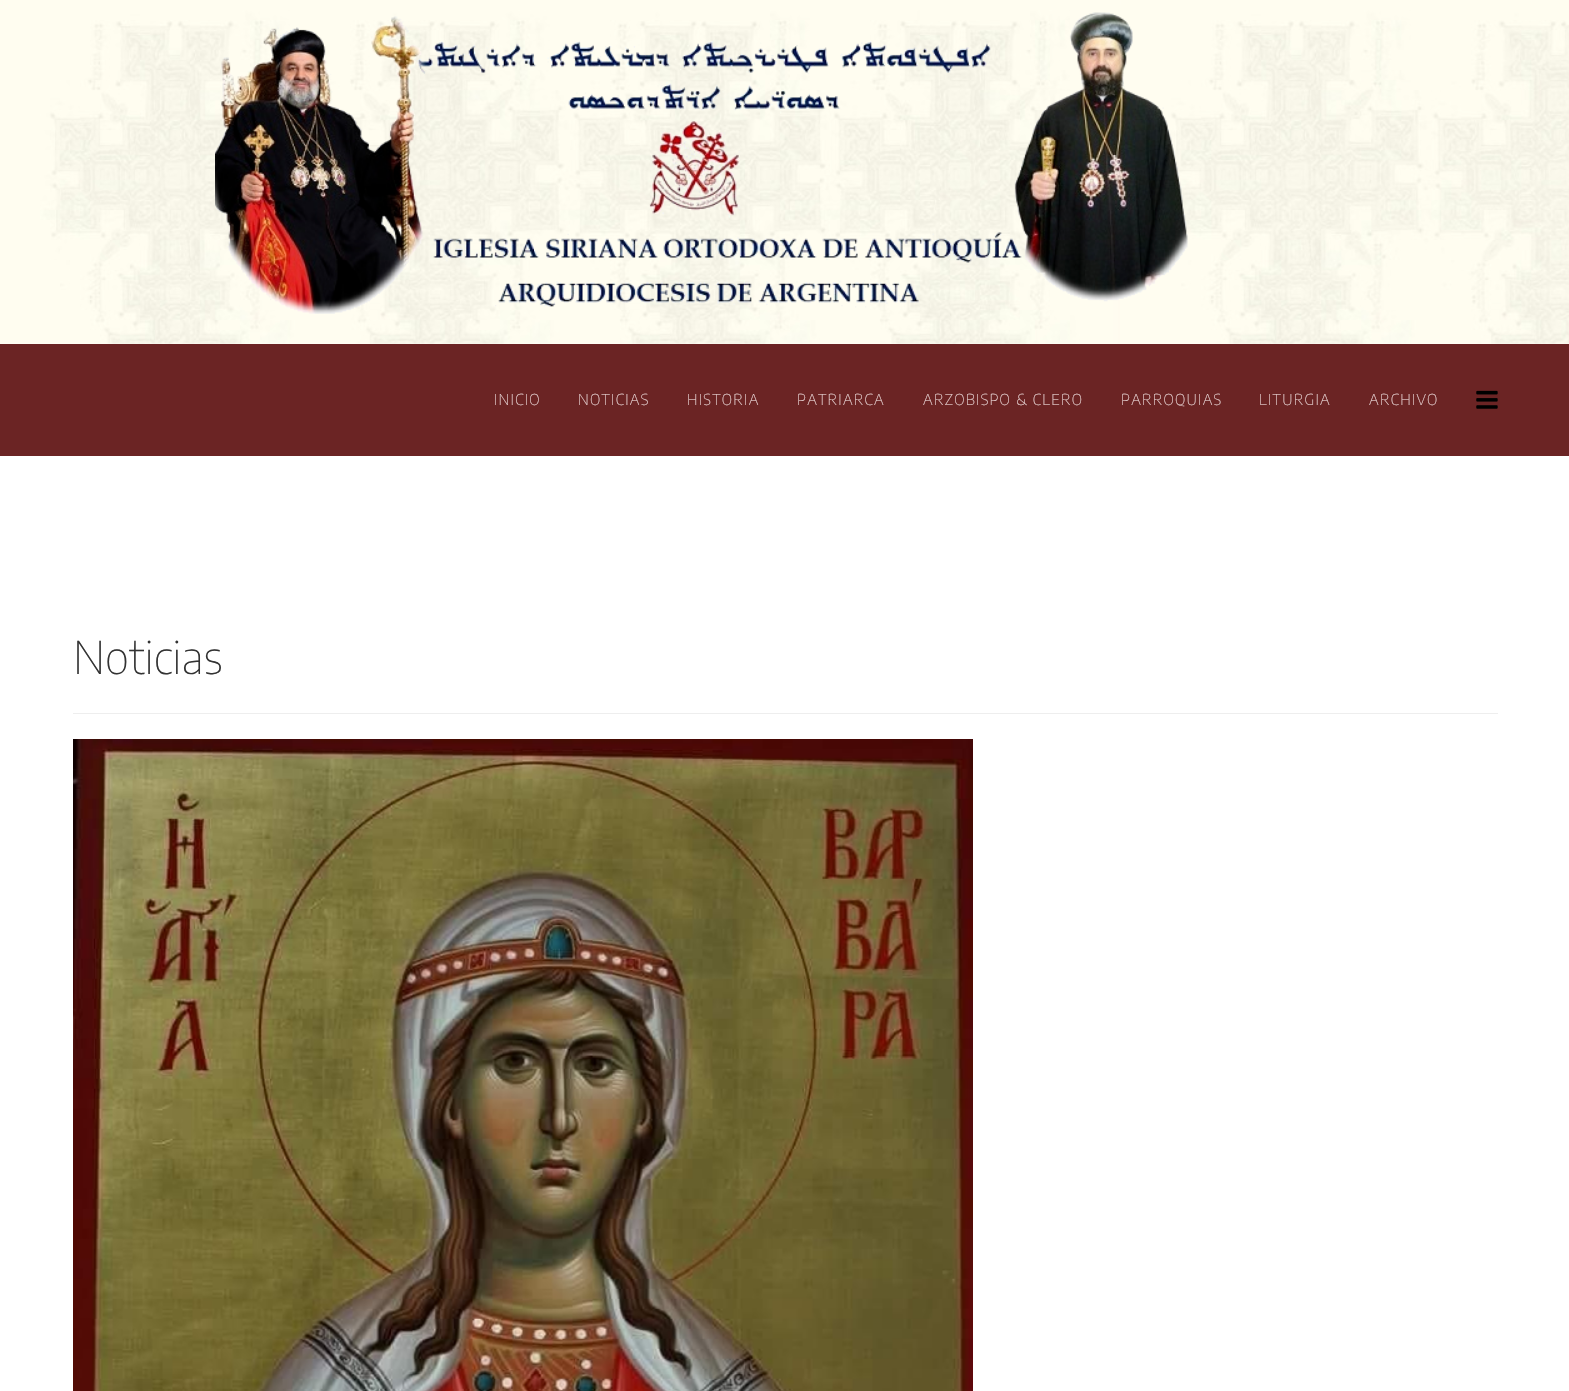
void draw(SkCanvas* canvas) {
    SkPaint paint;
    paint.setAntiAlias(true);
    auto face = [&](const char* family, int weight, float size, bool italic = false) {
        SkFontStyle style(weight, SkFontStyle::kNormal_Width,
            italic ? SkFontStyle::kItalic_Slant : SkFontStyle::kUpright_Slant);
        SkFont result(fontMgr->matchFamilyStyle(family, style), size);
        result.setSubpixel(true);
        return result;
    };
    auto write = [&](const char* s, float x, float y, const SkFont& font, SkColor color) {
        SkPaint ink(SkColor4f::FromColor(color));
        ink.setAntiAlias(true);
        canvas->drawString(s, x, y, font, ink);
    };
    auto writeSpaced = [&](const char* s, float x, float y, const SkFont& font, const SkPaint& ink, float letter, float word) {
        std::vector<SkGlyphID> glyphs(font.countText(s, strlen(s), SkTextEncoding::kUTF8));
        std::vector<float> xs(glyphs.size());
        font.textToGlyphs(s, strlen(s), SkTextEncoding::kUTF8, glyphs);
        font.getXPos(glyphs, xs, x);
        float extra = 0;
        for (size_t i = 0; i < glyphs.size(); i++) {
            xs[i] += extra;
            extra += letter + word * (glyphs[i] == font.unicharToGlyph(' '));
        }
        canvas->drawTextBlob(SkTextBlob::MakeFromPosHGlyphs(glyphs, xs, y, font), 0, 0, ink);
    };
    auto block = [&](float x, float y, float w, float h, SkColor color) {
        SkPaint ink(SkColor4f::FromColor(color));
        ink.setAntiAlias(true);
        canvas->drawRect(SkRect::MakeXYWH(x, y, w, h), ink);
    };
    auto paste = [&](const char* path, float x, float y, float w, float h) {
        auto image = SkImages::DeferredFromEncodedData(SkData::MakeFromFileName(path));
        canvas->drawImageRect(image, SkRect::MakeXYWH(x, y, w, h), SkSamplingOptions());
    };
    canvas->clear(SK_ColorWHITE);
    paste("pic1.png", 0, 0, 1569, 344);
    paste("pic2.png", 215, 12, 973, 302);
    block(0, 344, 1569, 112, SkColorSetRGB(107, 36, 36));
    auto kFont1 = face("Encode Sans Condensed", 100, 15);
    paint.setColor(SkColorSetRGB(235, 217, 217));
    writeSpaced("INICIO", 494, 405, kFont1, paint, 1.25f, 0);
    writeSpaced("NOTICIAS", 578, 405, kFont1, paint, 1.25f, 0);
    writeSpaced("HISTORIA", 687, 405, kFont1, paint, 1.25f, 0);
    writeSpaced("PATRIARCA", 797, 405, kFont1, paint, 1.25f, 0);
    writeSpaced("ARZOBISPO & CLERO", 923, 405, kFont1, paint, 1.25f, 0);
    writeSpaced("PARROQUIAS", 1121, 405, kFont1, paint, 1.25f, 0);
    writeSpaced("LITURGIA", 1259, 405, kFont1, paint, 1.25f, 0);
    writeSpaced("ARCHIVO", 1369, 405, kFont1, paint, 1.25f, 0);
    paste("pic3.png", 1476, 390, 22, 19);
    block(73, 713, 1425, 1, SkColorSetRGB(238, 238, 238));
    auto kFont2 = face("Encode Sans Condensed", 100, 45);
    write("Noticias", 73, 674, kFont2, SkColorSetRGB(51, 51, 51));
    paste("pic4.png", 73, 739, 900, 652);
}
